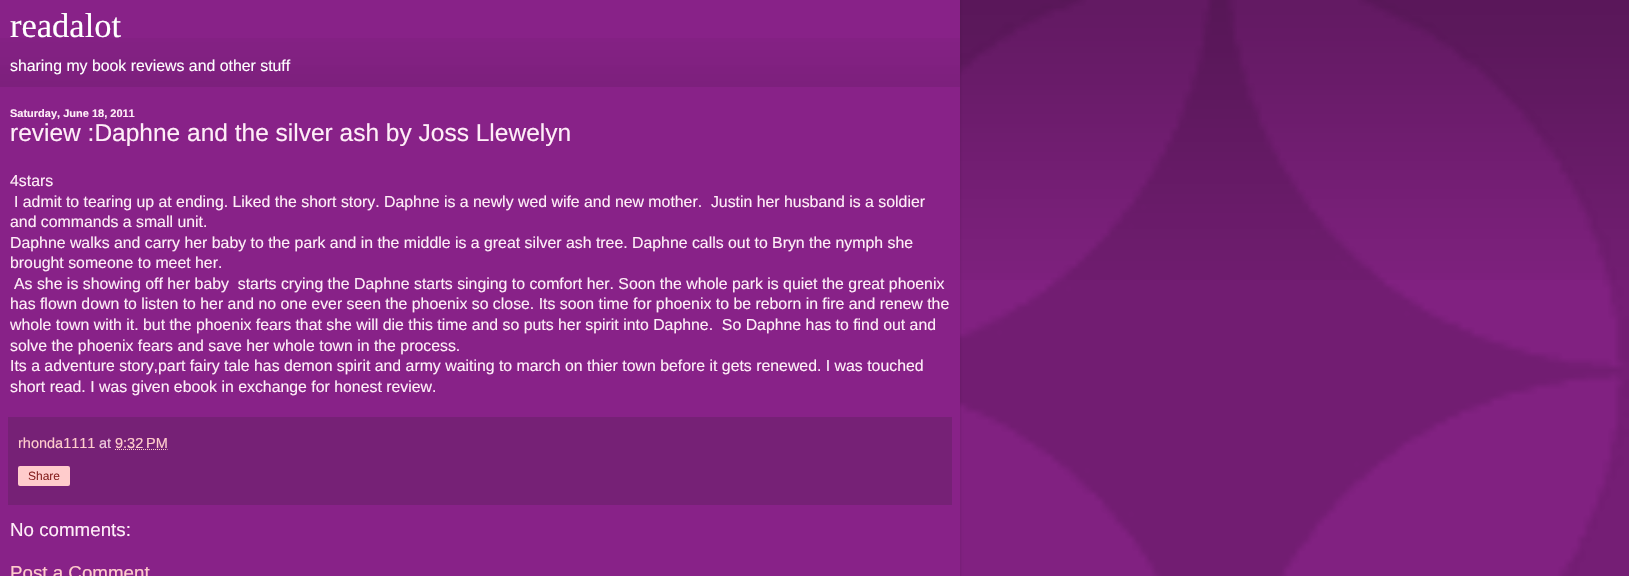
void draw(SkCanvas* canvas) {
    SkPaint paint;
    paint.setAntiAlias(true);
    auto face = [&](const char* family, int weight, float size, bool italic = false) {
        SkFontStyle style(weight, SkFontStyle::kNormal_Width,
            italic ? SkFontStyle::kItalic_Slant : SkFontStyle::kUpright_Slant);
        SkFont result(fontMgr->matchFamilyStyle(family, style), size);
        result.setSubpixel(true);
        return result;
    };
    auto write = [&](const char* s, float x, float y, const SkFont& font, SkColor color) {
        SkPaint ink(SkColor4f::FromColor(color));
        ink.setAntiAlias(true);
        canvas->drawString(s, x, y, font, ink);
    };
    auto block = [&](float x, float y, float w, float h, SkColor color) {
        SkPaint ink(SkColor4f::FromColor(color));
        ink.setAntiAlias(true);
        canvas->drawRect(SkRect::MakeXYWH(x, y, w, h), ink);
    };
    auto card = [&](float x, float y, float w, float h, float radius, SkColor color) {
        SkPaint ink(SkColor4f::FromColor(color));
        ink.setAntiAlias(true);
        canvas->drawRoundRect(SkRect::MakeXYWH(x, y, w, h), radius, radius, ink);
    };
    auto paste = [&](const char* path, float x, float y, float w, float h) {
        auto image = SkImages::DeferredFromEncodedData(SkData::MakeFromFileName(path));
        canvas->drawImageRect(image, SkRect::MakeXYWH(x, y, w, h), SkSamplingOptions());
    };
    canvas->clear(SkColorSetRGB(136, 34, 136));
    paste("pic1.png", 960, 0, 669, 576);
    paste("pic3.png", 960, 0, 669, 280);
    paint.setColor(SkColorSetARGB(38, 0, 0, 0));
    paint.setMaskFilter(SkMaskFilter::MakeBlur(kNormal_SkBlurStyle, 1.5f));
    canvas->drawRect(SkRect::MakeXYWH(0, -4, 960, 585), paint);
    paint.setMaskFilter(nullptr);
    block(0, 0, 960, 576, SkColorSetRGB(136, 34, 136));
    paste("pic2.png", 0, 38, 960, 49);
    auto kFont1 = face("Liberation Serif", 400, 34.5f);
    write("readalot", 10, 37, kFont1, SK_ColorWHITE);
    auto kFont2 = face("Liberation Sans", 400, 15.85f);
    write("sharing my book reviews and other stuff", 10, 71, kFont2, SK_ColorWHITE);
    auto kFont3 = face("Liberation Sans", 700, 11);
    write("Saturday, June 18, 2011", 10, 117, kFont3, SkColorSetRGB(255, 238, 248));
    auto kFont4 = face("Liberation Sans", 400, 24.5f);
    write("review :Daphne and the silver ash by Joss Llewelyn", 10, 141, kFont4, SkColorSetRGB(255, 238, 248));
    write("4stars", 10, 186, kFont2, SkColorSetRGB(255, 238, 248));
    write("I admit to tearing up at ending. Liked the short story. Daphne is a newly wed wife and new mother.  Justin her husband is a soldier", 14, 207, kFont2, SkColorSetRGB(255, 238, 248));
    write("and commands a small unit.", 10, 227, kFont2, SkColorSetRGB(255, 238, 248));
    write("Daphne walks and carry her baby to the park and in the middle is a great silver ash tree. Daphne calls out to Bryn the nymph she", 10, 248, kFont2, SkColorSetRGB(255, 238, 248));
    write("brought someone to meet her.", 10, 268, kFont2, SkColorSetRGB(255, 238, 248));
    write("As she is showing off her baby  starts crying the Daphne starts singing to comfort her. Soon the whole park is quiet the great phoenix", 14, 289, kFont2, SkColorSetRGB(255, 238, 248));
    write("has flown down to listen to her and no one ever seen the phoenix so close. Its soon time for phoenix to be reborn in fire and renew the", 10, 309, kFont2, SkColorSetRGB(255, 238, 248));
    write("whole town with it. but the phoenix fears that she will die this time and so puts her spirit into Daphne.  So Daphne has to find out and", 10, 330, kFont2, SkColorSetRGB(255, 238, 248));
    write("solve the phoenix fears and save her whole town in the process.", 10, 351, kFont2, SkColorSetRGB(255, 238, 248));
    write("Its a adventure story,part fairy tale has demon spirit and army waiting to march on thier town before it gets renewed. I was touched", 10, 371, kFont2, SkColorSetRGB(255, 238, 248));
    write("short read. I was given ebook in exchange for honest review.", 10, 392, kFont2, SkColorSetRGB(255, 238, 248));
    block(8, 417, 944, 88, SkColorSetRGB(118, 33, 118));
    auto kFont5 = face("Liberation Sans", 400, 14.5f);
    write("rhonda1111", 18, 448, kFont5, SkColorSetRGB(255, 204, 204));
    write("at", 99, 448, kFont5, SkColorSetRGB(238, 204, 221));
    write("9:32 PM", 115, 448, kFont5, SkColorSetRGB(255, 204, 204));
    paint.setStyle(SkPaint::kStroke_Style);
    paint.setStrokeWidth(1);
    paint.setColor(SkColorSetRGB(255, 204, 204));
    paint.setPathEffect(SkDashPathEffect::Make({{1, 1}}, 0));
    canvas->drawPath(SkPathBuilder().moveTo(115, 449.5f).lineTo(167.5f, 449.5f).detach(), paint);
    paint.setPathEffect(nullptr);
    card(18, 466, 52, 20, 2, SkColorSetRGB(255, 204, 204));
    auto kFont6 = face("Liberation Sans", 400, 12);
    write("Share", 28, 480, kFont6, SkColorSetRGB(136, 34, 34));
    auto kFont7 = face("Liberation Sans", 400, 18.75f);
    write("No comments:", 10, 536, kFont7, SkColorSetRGB(255, 238, 248));
    write("Post a Comment", 10, 579, kFont7, SkColorSetRGB(255, 204, 204));
}
